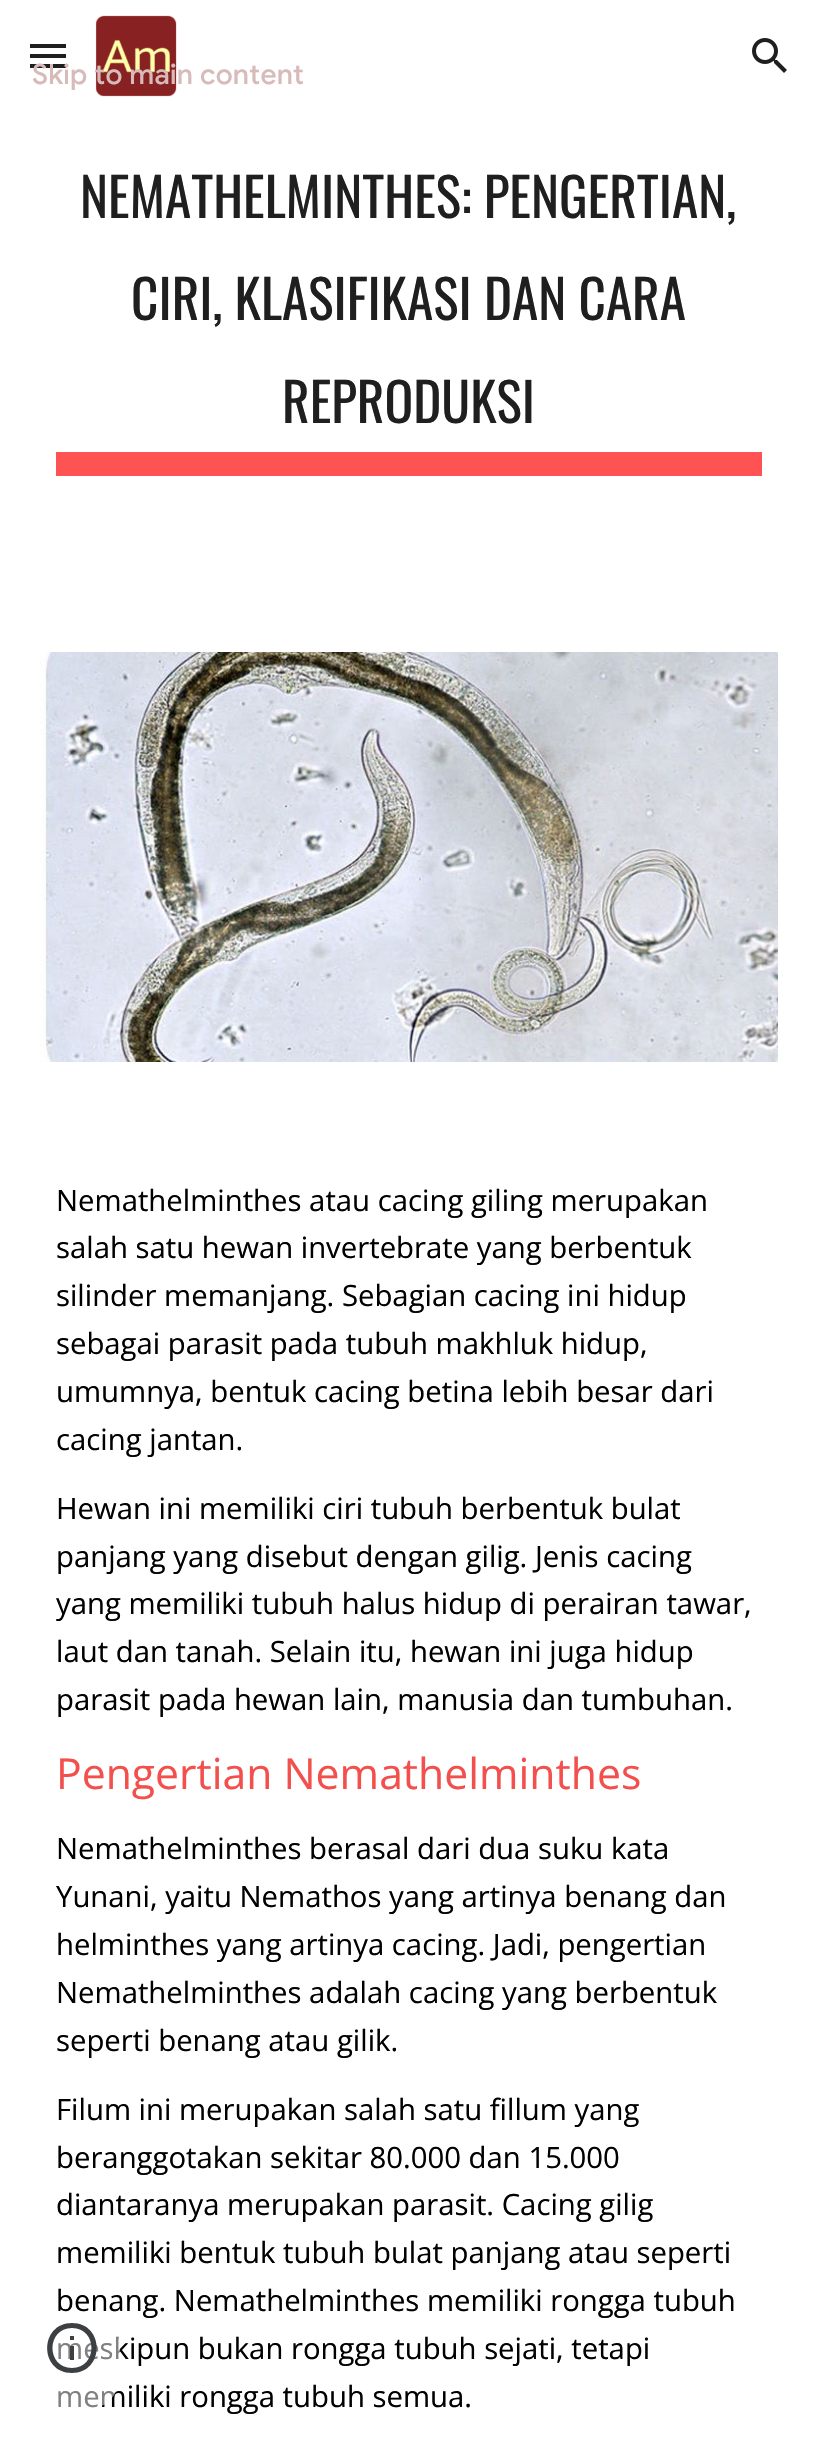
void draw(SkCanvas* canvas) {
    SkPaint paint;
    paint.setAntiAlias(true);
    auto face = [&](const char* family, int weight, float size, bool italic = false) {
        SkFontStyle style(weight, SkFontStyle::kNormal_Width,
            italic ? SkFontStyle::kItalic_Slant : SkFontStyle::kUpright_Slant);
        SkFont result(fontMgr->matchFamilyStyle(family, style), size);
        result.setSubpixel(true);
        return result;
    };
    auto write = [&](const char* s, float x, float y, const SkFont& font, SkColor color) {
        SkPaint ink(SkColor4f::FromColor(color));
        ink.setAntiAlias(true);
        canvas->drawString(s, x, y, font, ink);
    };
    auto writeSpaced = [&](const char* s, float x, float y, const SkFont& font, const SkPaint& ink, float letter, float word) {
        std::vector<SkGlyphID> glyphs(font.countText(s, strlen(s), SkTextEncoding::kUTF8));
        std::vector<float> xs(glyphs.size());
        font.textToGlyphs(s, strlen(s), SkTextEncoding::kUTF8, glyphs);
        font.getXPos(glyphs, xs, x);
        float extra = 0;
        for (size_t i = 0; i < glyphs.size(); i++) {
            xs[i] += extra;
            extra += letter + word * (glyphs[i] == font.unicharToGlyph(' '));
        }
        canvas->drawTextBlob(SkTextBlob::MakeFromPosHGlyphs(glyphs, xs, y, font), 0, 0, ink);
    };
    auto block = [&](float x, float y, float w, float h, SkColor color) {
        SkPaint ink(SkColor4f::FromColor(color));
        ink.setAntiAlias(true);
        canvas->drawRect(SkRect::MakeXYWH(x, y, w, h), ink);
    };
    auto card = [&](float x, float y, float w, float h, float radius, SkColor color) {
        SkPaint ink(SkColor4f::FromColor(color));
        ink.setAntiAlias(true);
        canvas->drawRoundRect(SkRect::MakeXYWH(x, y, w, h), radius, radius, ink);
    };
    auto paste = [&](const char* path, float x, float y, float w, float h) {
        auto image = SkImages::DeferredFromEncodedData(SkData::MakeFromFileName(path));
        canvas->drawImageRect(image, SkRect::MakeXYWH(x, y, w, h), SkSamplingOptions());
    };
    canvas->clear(SK_ColorWHITE);
    block(30, 64, 36, 4, SkColorSetRGB(31, 31, 31));
    paste("pic1.png", 95, 15, 82, 82);
    auto kFont1 = face("Google Sans", 500, 28);
    paint.setColor(SkColorSetRGB(215, 187, 186));
    writeSpaced("Skip to main content", 32, 84, kFont1, paint, 0.25f, 0);
    block(30, 44, 36, 4, SkColorSetRGB(31, 31, 31));
    block(30, 54, 36, 4, SkColorSetRGB(31, 31, 31));
    paste("pic2.png", 752, 38, 35, 35);
    auto kFont2 = face("Oswald", 400, 53.25f);
    write("NEMATHELMINTHES: PENGERTIAN,", 80, 218, kFont2, SkColorSetRGB(31, 31, 31));
    write("CIRI, KLASIFIKASI DAN CARA", 131, 320, kFont2, SkColorSetRGB(31, 31, 31));
    write("REPRODUKSI", 282, 423, kFont2, SkColorSetRGB(31, 31, 31));
    block(56, 452, 706, 24, SkColorSetRGB(255, 82, 82));
    paste("pic3.png", 40, 652, 738, 410);
    auto kFont3 = face("Open Sans", 400, 29.3f);
    write("Nemathelminthes atau cacing giling merupakan", 56, 1211, kFont3, SK_ColorBLACK);
    write("salah satu hewan invertebrate yang berbentuk", 56, 1258, kFont3, SK_ColorBLACK);
    write("silinder memanjang. Sebagian cacing ini hidup", 56, 1306, kFont3, SK_ColorBLACK);
    write("sebagai parasit pada tubuh makhluk hidup,", 56, 1354, kFont3, SK_ColorBLACK);
    write("umumnya, bentuk cacing betina lebih besar dari", 56, 1402, kFont3, SK_ColorBLACK);
    write("cacing jantan.", 56, 1450, kFont3, SK_ColorBLACK);
    write("Hewan ini memiliki ciri tubuh berbentuk bulat", 56, 1519, kFont3, SK_ColorBLACK);
    write("panjang yang disebut dengan gilig. Jenis cacing", 56, 1567, kFont3, SK_ColorBLACK);
    write("yang memiliki tubuh halus hidup di perairan tawar,", 56, 1614, kFont3, SK_ColorBLACK);
    write("laut dan tanah. Selain itu, hewan ini juga hidup", 56, 1662, kFont3, SK_ColorBLACK);
    write("parasit pada hewan lain, manusia dan tumbuhan.", 56, 1710, kFont3, SK_ColorBLACK);
    auto kFont4 = face("Open Sans", 400, 42.7f);
    write("Pengertian Nemathelminthes", 56, 1789, kFont4, SkColorSetRGB(243, 79, 76));
    write("Nemathelminthes berasal dari dua suku kata", 56, 1859, kFont3, SK_ColorBLACK);
    write("Yunani, yaitu Nemathos yang artinya benang dan", 56, 1907, kFont3, SK_ColorBLACK);
    write("helminthes yang artinya cacing. Jadi, pengertian", 56, 1955, kFont3, SK_ColorBLACK);
    write("Nemathelminthes adalah cacing yang berbentuk", 56, 2003, kFont3, SK_ColorBLACK);
    write("seperti benang atau gilik.", 56, 2051, kFont3, SK_ColorBLACK);
    write("Filum ini merupakan salah satu fillum yang", 56, 2120, kFont3, SK_ColorBLACK);
    write("beranggotakan sekitar 80.000 dan 15.000", 56, 2168, kFont3, SK_ColorBLACK);
    write("diantaranya merupakan parasit. Cacing gilig", 56, 2215, kFont3, SK_ColorBLACK);
    write("memiliki bentuk tubuh bulat panjang atau seperti", 56, 2263, kFont3, SK_ColorBLACK);
    write("benang. Nemathelminthes memiliki rongga tubuh", 56, 2311, kFont3, SK_ColorBLACK);
    write("meskipun bukan rongga tubuh sejati, tetapi", 56, 2359, kFont3, SK_ColorBLACK);
    write("memiliki rongga tubuh semua.", 56, 2407, kFont3, SK_ColorBLACK);
    card(24, 2314, 96, 96, 34, SkColorSetARGB(128, 255, 255, 255));
    paint.setColor(SkColorSetRGB(60, 64, 67));
    canvas->drawPath(SkPathBuilder().moveTo(70, 2360).lineTo(74, 2360).lineTo(74, 2346).lineTo(70, 2346).close().moveTo(72, 2323).cubicTo(39, 2323, 39, 2373, 72, 2373).cubicTo(105, 2373, 105, 2323, 72, 2323).close().moveTo(72, 2368).cubicTo(46, 2368, 46, 2328, 72, 2328).cubicTo(98, 2328, 98, 2368, 72, 2368).close().moveTo(70, 2340).lineTo(74, 2340).lineTo(74, 2336).lineTo(70, 2336).close().detach(), paint);
}
